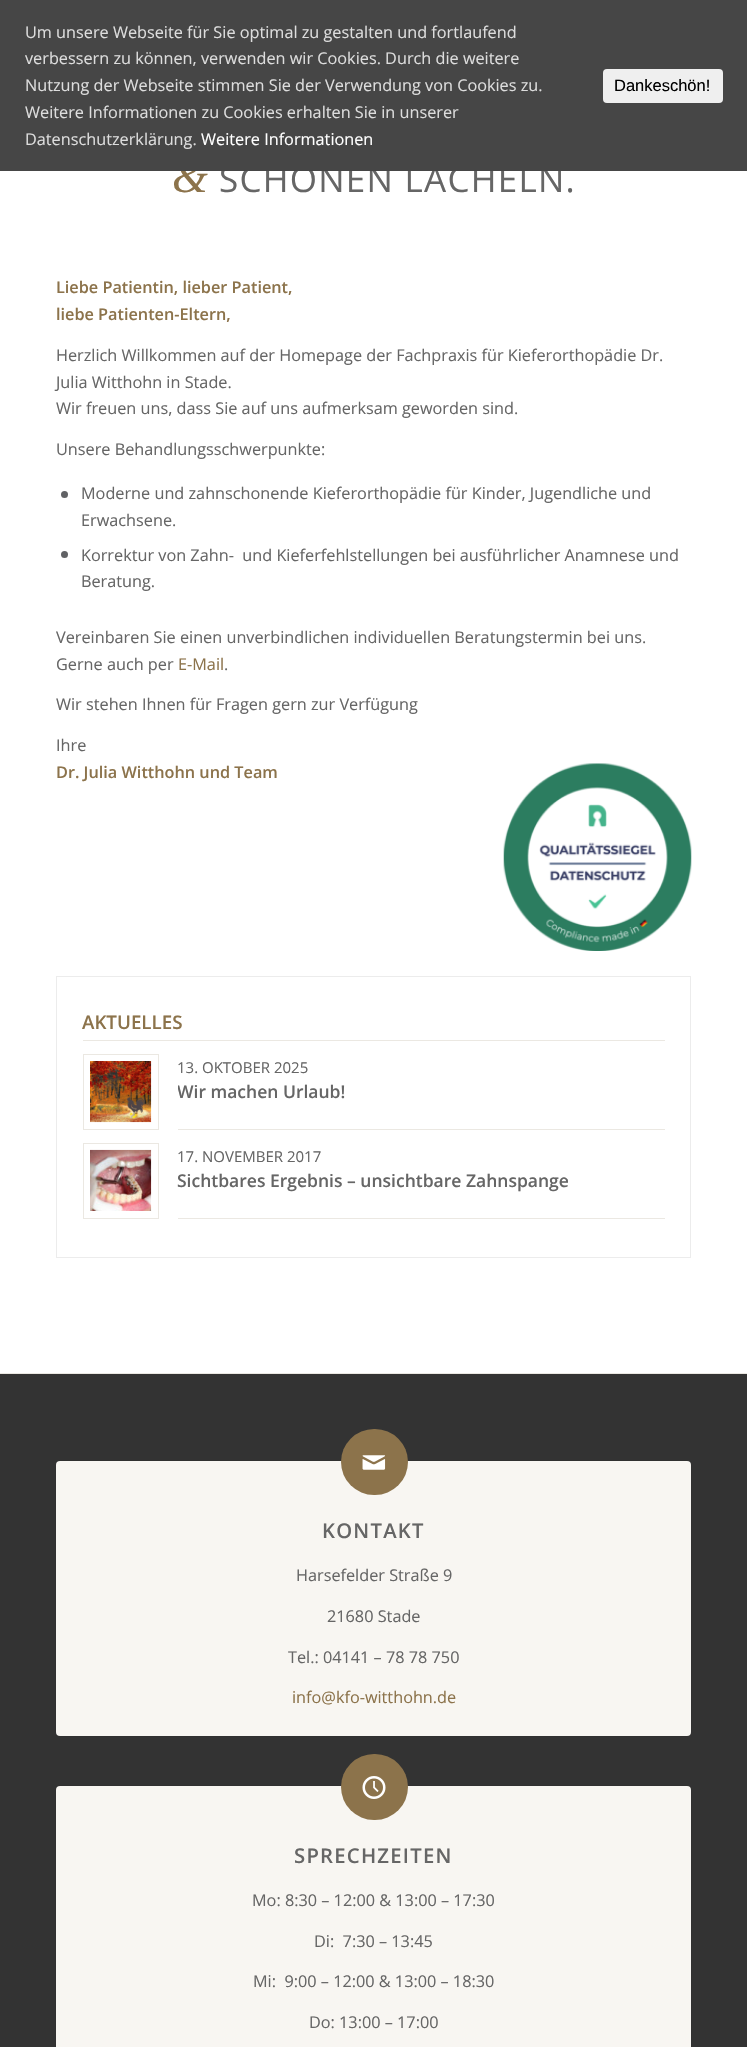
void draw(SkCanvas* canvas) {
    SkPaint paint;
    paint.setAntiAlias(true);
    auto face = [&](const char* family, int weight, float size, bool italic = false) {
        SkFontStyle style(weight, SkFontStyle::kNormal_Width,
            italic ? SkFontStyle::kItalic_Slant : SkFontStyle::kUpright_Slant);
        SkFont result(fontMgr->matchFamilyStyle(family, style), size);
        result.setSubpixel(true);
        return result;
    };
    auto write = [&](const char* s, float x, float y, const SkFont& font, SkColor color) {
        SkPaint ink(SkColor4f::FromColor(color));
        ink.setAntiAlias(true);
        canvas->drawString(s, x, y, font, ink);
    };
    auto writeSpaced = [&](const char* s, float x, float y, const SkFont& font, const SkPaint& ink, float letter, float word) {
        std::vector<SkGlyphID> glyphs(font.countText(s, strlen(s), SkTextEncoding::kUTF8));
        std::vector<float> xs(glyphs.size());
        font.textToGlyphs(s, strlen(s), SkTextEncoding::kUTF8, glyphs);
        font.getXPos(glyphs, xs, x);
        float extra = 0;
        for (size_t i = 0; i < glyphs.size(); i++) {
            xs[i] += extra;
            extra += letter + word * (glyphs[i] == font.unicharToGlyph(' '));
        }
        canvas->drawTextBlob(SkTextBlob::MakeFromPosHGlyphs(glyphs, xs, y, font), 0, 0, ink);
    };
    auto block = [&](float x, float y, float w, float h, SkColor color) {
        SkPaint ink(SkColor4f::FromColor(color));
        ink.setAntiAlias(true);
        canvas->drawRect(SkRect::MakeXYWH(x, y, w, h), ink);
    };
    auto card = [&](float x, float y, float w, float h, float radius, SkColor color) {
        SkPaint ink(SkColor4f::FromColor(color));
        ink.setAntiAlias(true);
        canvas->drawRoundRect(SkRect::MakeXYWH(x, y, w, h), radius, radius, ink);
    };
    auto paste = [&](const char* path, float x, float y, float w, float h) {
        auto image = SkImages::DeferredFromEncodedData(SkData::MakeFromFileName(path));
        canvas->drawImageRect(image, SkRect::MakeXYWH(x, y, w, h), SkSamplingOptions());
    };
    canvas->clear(SK_ColorWHITE);
    auto kFont1 = face("Liberation Serif", 400, 46, true);
    paint.setColor(SkColorSetRGB(140, 115, 75));
    writeSpaced("&", 172, 192, kFont1, paint, 1.25f, 0);
    auto kFont2 = face("Open Sans", 400, 35);
    paint.setColor(SkColorSetRGB(102, 102, 102));
    writeSpaced("SCHÖNEN LÄCHELN.", 219, 192, kFont2, paint, 1.25f, 0);
    block(0, 0, 747, 171, SkColorSetRGB(70, 70, 70));
    auto kFont3 = face("Open Sans", 400, 16.25f);
    write("Um unsere Webseite für Sie optimal zu gestalten und fortlaufend", 25, 38, kFont3, SkColorSetRGB(221, 221, 221));
    write("verbessern zu können, verwenden wir Cookies. Durch die weitere", 25, 64, kFont3, SkColorSetRGB(221, 221, 221));
    write("Nutzung der Webseite stimmen Sie der Verwendung von Cookies zu.", 25, 91, kFont3, SkColorSetRGB(221, 221, 221));
    write("Weitere Informationen zu Cookies erhalten Sie in unserer", 25, 118, kFont3, SkColorSetRGB(221, 221, 221));
    write("Datenschutzerklärung.", 25, 145, kFont3, SkColorSetRGB(221, 221, 221));
    write("Weitere Informationen", 201, 145, kFont3, SK_ColorWHITE);
    card(603, 69, 120, 34, 4, SkColorSetRGB(239, 239, 239));
    auto kFont4 = face("Liberation Sans", 400, 16.5f);
    write("Dankeschön!", 614, 91, kFont4, SK_ColorBLACK);
    auto kFont5 = face("Open Sans", 600, 16.25f);
    write("Liebe Patientin, lieber Patient,", 56, 293, kFont5, SkColorSetRGB(140, 115, 75));
    write("liebe Patienten-Eltern,", 56, 320, kFont5, SkColorSetRGB(140, 115, 75));
    write("Herzlich Willkommen auf der Homepage der Fachpraxis für Kieferorthopädie Dr.", 56, 361, kFont3, SkColorSetRGB(102, 102, 102));
    write("Julia Witthohn in Stade.", 56, 388, kFont3, SkColorSetRGB(102, 102, 102));
    write("Wir freuen uns, dass Sie auf uns aufmerksam geworden sind.", 56, 414, kFont3, SkColorSetRGB(102, 102, 102));
    write("Unsere Behandlungsschwerpunkte:", 56, 455, kFont3, SkColorSetRGB(102, 102, 102));
    paint.setColor(SkColorSetRGB(97, 98, 101));
    canvas->drawCircle(64.5f, 494.5f, 3.5f, paint);
    write("Moderne und zahnschonende Kieferorthopädie für Kinder, Jugendliche und", 81, 499, kFont3, SkColorSetRGB(102, 102, 102));
    write("Erwachsene.", 81, 526, kFont3, SkColorSetRGB(102, 102, 102));
    canvas->drawCircle(64.5f, 554.5f, 3.5f, paint);
    write("Korrektur von Zahn-  und Kieferfehlstellungen bei ausführlicher Anamnese und", 81, 561, kFont3, SkColorSetRGB(102, 102, 102));
    write("Beratung.", 81, 587, kFont3, SkColorSetRGB(102, 102, 102));
    write("Vereinbaren Sie einen unverbindlichen individuellen Beratungstermin bei uns.", 56, 643, kFont3, SkColorSetRGB(102, 102, 102));
    write("Gerne auch per", 56, 670, kFont3, SkColorSetRGB(102, 102, 102));
    write("E-Mail", 178, 670, kFont3, SkColorSetRGB(140, 115, 75));
    write(".", 224, 670, kFont3, SkColorSetRGB(102, 102, 102));
    write("Wir stehen Ihnen für Fragen gern zur Verfügung", 56, 710, kFont3, SkColorSetRGB(102, 102, 102));
    write("Ihre", 56, 751, kFont3, SkColorSetRGB(102, 102, 102));
    write("Dr. Julia Witthohn und Team", 56, 778, kFont5, SkColorSetRGB(140, 115, 75));
    paste("pic1.png", 503, 763, 189, 188);
    paint.setStyle(SkPaint::kStroke_Style);
    paint.setStrokeWidth(1);
    paint.setColor(SkColorSetRGB(236, 236, 236));
    canvas->drawRect(SkRect::MakeXYWH(56.5f, 976.5f, 634, 281), paint);
    block(83, 1040, 582, 1, SkColorSetRGB(235, 232, 226));
    auto kFont6 = face("Open Sans", 600, 18.75f);
    write("AKTUELLES", 82, 1029, kFont6, SkColorSetRGB(140, 115, 75));
    paint.setColor(SkColorSetRGB(235, 232, 226));
    canvas->drawRect(SkRect::MakeXYWH(83.5f, 1054.5f, 75, 75), paint);
    paste("pic2.png", 90, 1061, 62, 62);
    block(178, 1129, 487, 1, SkColorSetRGB(235, 232, 226));
    auto kFont7 = face("Open Sans", 400, 15);
    write("13. OKTOBER 2025", 177, 1073, kFont7, SkColorSetRGB(102, 102, 102));
    canvas->save();
    canvas->clipRect(SkRect::MakeXYWH(178, 1054, 487, 75));
    auto kFont8 = face("Open Sans", 600, 17.5f);
    write("Wir machen Urlaub!", 177, 1098, kFont8, SkColorSetRGB(102, 102, 102));
    canvas->restore();
    canvas->drawRect(SkRect::MakeXYWH(83.5f, 1143.5f, 75, 75), paint);
    paste("pic3.png", 90, 1149, 62, 62);
    block(178, 1218, 487, 1, SkColorSetRGB(235, 232, 226));
    write("17. NOVEMBER 2017", 177, 1162, kFont7, SkColorSetRGB(102, 102, 102));
    write("Sichtbares Ergebnis – unsichtbare Zahnspange", 177, 1187, kFont8, SkColorSetRGB(102, 102, 102));
    block(0, 1374, 747, 673, SkColorSetRGB(51, 51, 51));
    block(0, 1373, 747, 1, SkColorSetRGB(235, 232, 226));
    paint.setStyle(SkPaint::kFill_Style);
    paint.setColor(SkColorSetARGB(77, 0, 0, 0));
    paint.setMaskFilter(SkMaskFilter::MakeBlur(kNormal_SkBlurStyle, 0.5f));
    canvas->drawRoundRect(SkRect::MakeXYWH(56, 1461, 635, 275), 4, 4, paint);
    paint.setMaskFilter(nullptr);
    card(56, 1461, 635, 275, 4, SkColorSetRGB(248, 246, 242));
    card(341, 1429, 67, 66, 33, SkColorSetRGB(140, 115, 75));
    paste("pic4.png", 362, 1455, 24, 15);
    auto kFont9 = face("Open Sans", 600, 20.25f);
    paint.setColor(SkColorSetRGB(102, 102, 102));
    writeSpaced("KONTAKT", 322, 1538, kFont9, paint, 1.25f, 0);
    write("Harsefelder Straße 9", 296, 1581, kFont3, SkColorSetRGB(102, 102, 102));
    write("21680 Stade", 327, 1622, kFont3, SkColorSetRGB(102, 102, 102));
    write("Tel.: 04141 – 78 78 750", 288, 1663, kFont3, SkColorSetRGB(102, 102, 102));
    write("info@kfo-witthohn.de", 292, 1703, kFont3, SkColorSetRGB(140, 115, 75));
    paint.setColor(SkColorSetARGB(77, 0, 0, 0));
    paint.setMaskFilter(SkMaskFilter::MakeBlur(kNormal_SkBlurStyle, 0.5f));
    canvas->drawRoundRect(SkRect::MakeXYWH(56, 1786, 635, 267), 4, 4, paint);
    paint.setMaskFilter(nullptr);
    card(56, 1786, 635, 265, 4, SkColorSetRGB(248, 246, 242));
    card(341, 1754, 67, 66, 33, SkColorSetRGB(140, 115, 75));
    paste("pic5.png", 362, 1776, 24, 23);
    paint.setColor(SkColorSetRGB(102, 102, 102));
    writeSpaced("SPRECHZEITEN", 294, 1863, kFont9, paint, 1.25f, 0);
    write("Mo: 8:30 – 12:00 & 13:00 – 17:30", 252, 1906, kFont3, SkColorSetRGB(102, 102, 102));
    write("Di:  7:30 – 13:45", 314, 1947, kFont3, SkColorSetRGB(102, 102, 102));
    write("Mi:  9:00 – 12:00 & 13:00 – 18:30", 253, 1987, kFont3, SkColorSetRGB(102, 102, 102));
    write("Do: 13:00 – 17:00", 309, 2028, kFont3, SkColorSetRGB(102, 102, 102));
}
